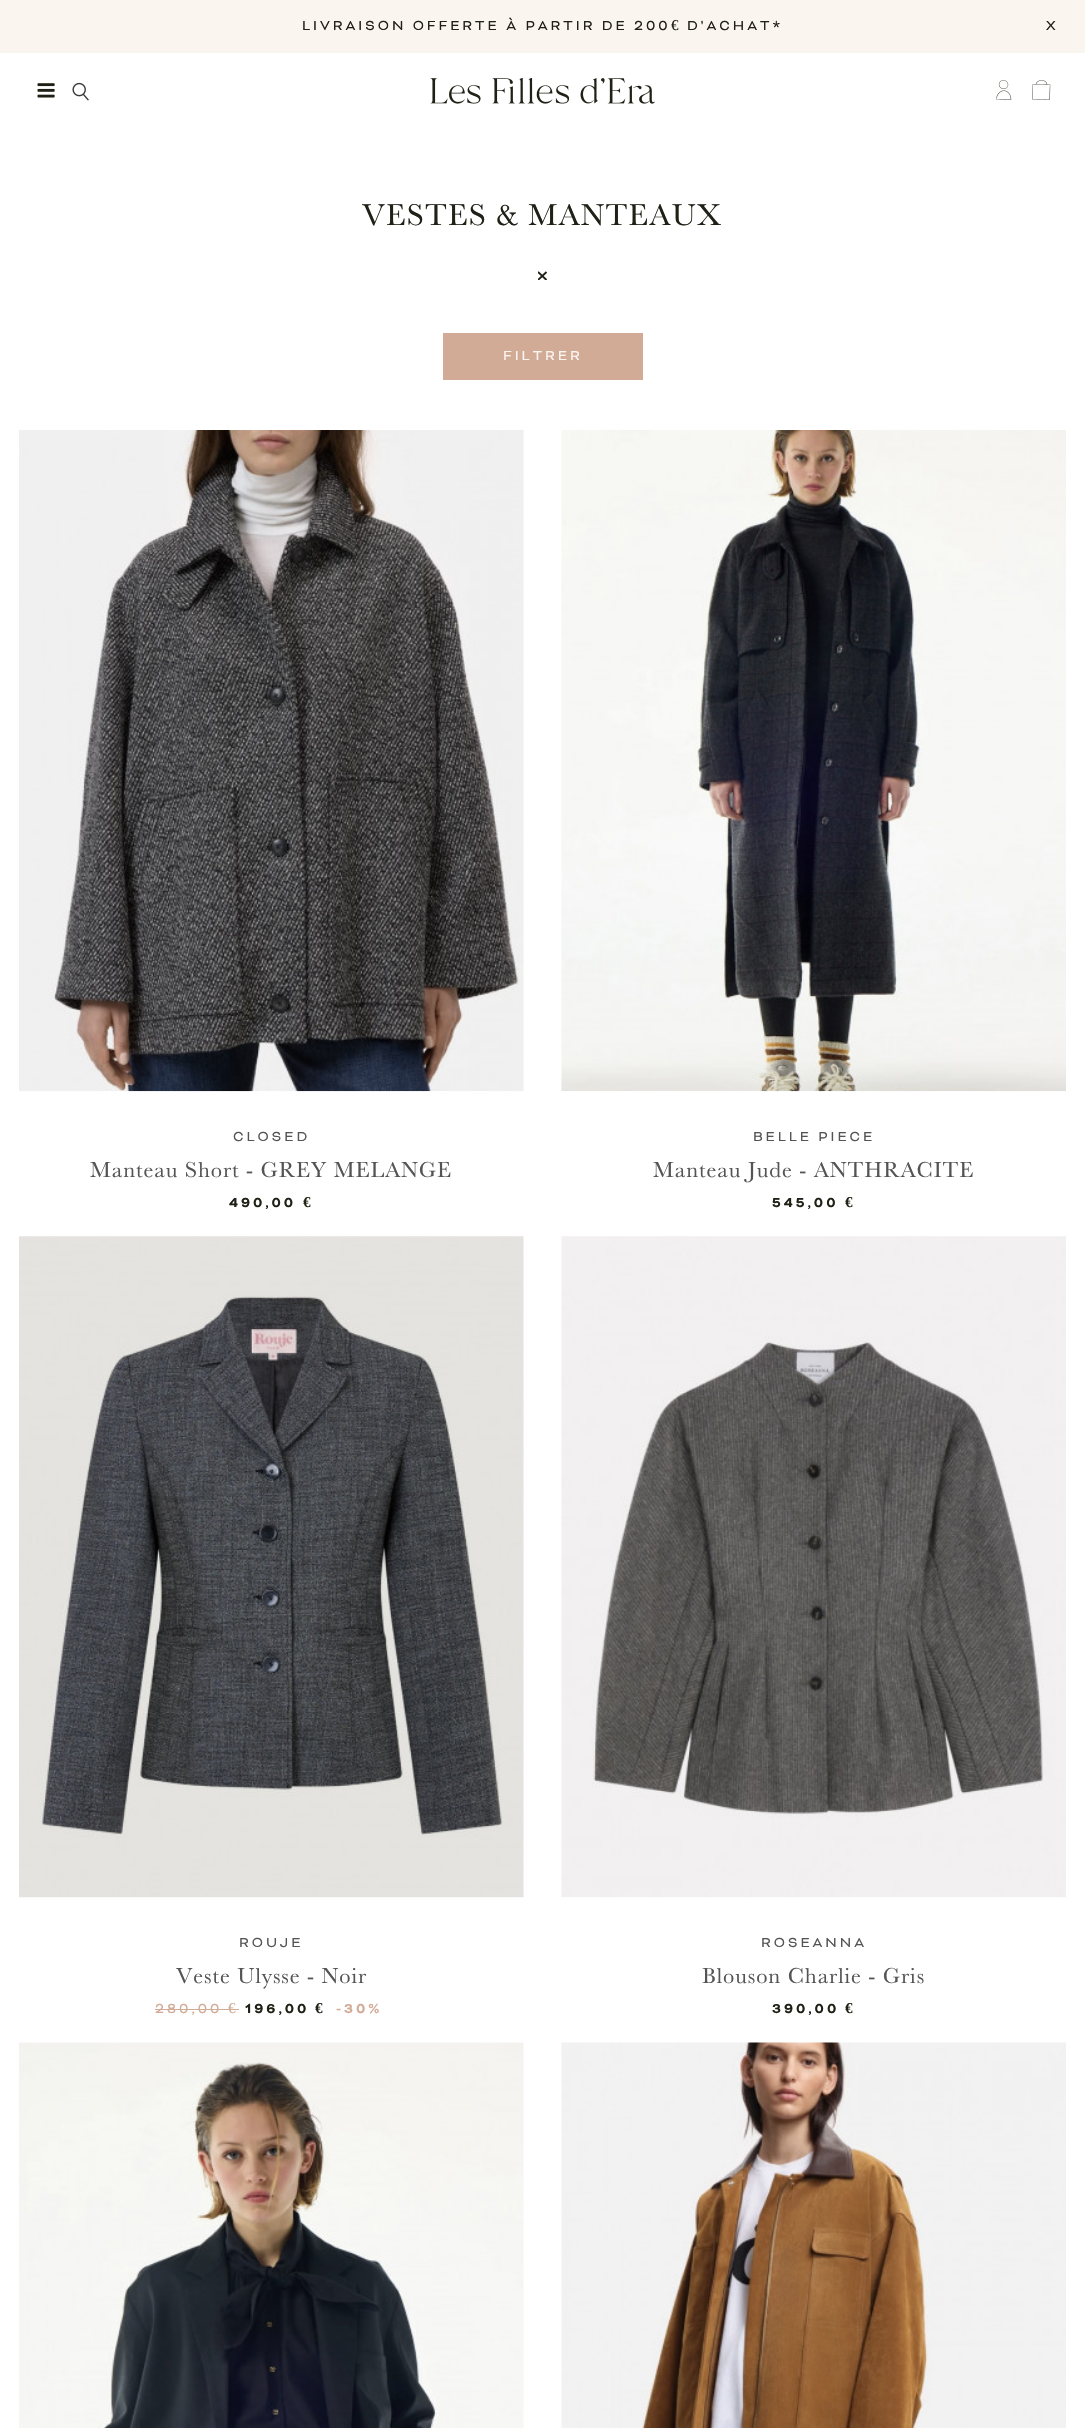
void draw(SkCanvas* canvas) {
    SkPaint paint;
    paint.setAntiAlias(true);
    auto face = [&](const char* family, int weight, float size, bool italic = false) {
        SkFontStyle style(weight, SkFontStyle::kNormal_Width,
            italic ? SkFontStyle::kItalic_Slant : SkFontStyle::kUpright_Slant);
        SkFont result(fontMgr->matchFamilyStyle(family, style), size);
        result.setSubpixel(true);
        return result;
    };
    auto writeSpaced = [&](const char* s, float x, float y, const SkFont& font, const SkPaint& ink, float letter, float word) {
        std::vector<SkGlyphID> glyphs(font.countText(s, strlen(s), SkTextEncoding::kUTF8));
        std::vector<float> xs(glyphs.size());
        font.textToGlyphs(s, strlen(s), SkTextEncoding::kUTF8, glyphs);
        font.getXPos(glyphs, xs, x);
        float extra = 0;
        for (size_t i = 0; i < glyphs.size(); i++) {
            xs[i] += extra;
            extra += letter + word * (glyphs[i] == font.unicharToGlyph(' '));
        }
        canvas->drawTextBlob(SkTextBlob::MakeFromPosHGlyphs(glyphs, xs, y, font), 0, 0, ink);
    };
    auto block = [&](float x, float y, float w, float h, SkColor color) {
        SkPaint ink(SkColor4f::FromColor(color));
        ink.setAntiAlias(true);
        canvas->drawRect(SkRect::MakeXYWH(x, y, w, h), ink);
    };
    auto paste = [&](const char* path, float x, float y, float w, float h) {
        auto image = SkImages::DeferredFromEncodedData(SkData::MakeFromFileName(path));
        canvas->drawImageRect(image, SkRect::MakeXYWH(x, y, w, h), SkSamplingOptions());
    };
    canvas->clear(SK_ColorWHITE);
    block(0, 0, 1085, 53, SkColorSetRGB(250, 245, 239));
    auto kFont1 = face("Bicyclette", 400, 15);
    paint.setColor(SkColorSetRGB(32, 33, 22));
    writeSpaced("LIVRAISON OFFERTE À PARTIR DE 200", 302, 30, kFont1, paint, 3, 0);
    auto kFont2 = face("Liberation Serif", 400, 15);
    writeSpaced("€", 671, 30, kFont2, paint, 3, 0);
    writeSpaced("D'ACHAT*", 687, 30, kFont1, paint, 3, 0);
    writeSpaced("X", 1046, 30, kFont1, paint, 3, 0);
    paste("pic1.png", 37, 83, 18, 15);
    paste("pic2.png", 72, 82, 17, 19);
    paste("pic3.png", 430, 78, 225, 26);
    paste("pic4.png", 996, 80, 16, 20);
    paste("pic5.png", 1032, 80, 19, 20);
    auto kFont3 = face("Baskerville", 400, 31.25f);
    writeSpaced("VESTES & MANTEAUX", 362, 225, kFont3, paint, 1.25f, 0);
    canvas->save();
    canvas->clipRect(SkRect::MakeXYWH(538, 271, 10, 9));
    paint.setStyle(SkPaint::kStroke_Style);
    paint.setStrokeWidth(1.9f);
    paint.setColor(SkColorSetRGB(32, 33, 23));
    canvas->drawPath(SkPathBuilder().moveTo(538, 272).lineTo(546.5f, 280).moveTo(546.5f, 272).lineTo(538, 280).detach(), paint);
    canvas->restore();
    block(443, 333, 200, 47, SkColorSetRGB(210, 171, 151));
    paint.setStyle(SkPaint::kFill_Style);
    paint.setColor(SkColorSetRGB(250, 245, 239));
    writeSpaced("FILTRER", 503, 360, kFont1, paint, 3, 0);
    paste("pic6.png", 19, 430, 505, 662);
    paint.setColor(SkColorSetRGB(84, 84, 84));
    writeSpaced("CLOSED", 233, 1141, kFont1, paint, 3, 0);
    auto kFont4 = face("Baskerville", 400, 22.5f);
    writeSpaced("Manteau Short - GREY MELANGE", 90, 1177, kFont4, paint, 0.9f, 0);
    auto kFont5 = face("Bicyclette", 700, 15);
    paint.setColor(SkColorSetRGB(32, 33, 22));
    writeSpaced("490,00", 229, 1207, kFont5, paint, 3, 0);
    auto kFont6 = face("Liberation Serif", 700, 15);
    writeSpaced("€", 303, 1207, kFont6, paint, 3, 0);
    paste("pic7.png", 561, 430, 505, 662);
    paint.setColor(SkColorSetRGB(84, 84, 84));
    writeSpaced("BELLE PIECE", 753, 1141, kFont1, paint, 3, 0);
    writeSpaced("Manteau Jude - ANTHRACITE", 653, 1177, kFont4, paint, 0.9f, 0);
    paint.setColor(SkColorSetRGB(32, 33, 22));
    writeSpaced("545,00", 772, 1207, kFont5, paint, 3, 0);
    writeSpaced("€", 845, 1207, kFont6, paint, 3, 0);
    paste("pic8.png", 19, 1236, 505, 662);
    paint.setColor(SkColorSetRGB(84, 84, 84));
    writeSpaced("ROUJE", 239, 1947, kFont1, paint, 3, 0);
    writeSpaced("Veste Ulysse - Noir", 176, 1983, kFont4, paint, 0.9f, 0);
    paint.setColor(SkColorSetRGB(210, 171, 151));
    writeSpaced("280,00", 155, 2013, kFont1, paint, 3, 0);
    block(155, 2009, 84, 1, SkColorSetRGB(210, 171, 151));
    writeSpaced("€", 228, 2013, kFont2, paint, 3, 0);
    paint.setColor(SkColorSetRGB(32, 33, 22));
    writeSpaced("196,00", 245, 2013, kFont5, paint, 3, 0);
    writeSpaced("€", 315, 2013, kFont6, paint, 3, 0);
    paint.setColor(SkColorSetRGB(210, 171, 151));
    writeSpaced("-30%", 336, 2013, kFont5, paint, 3, 0);
    paste("pic9.png", 561, 1236, 505, 662);
    paint.setColor(SkColorSetRGB(84, 84, 84));
    writeSpaced("ROSEANNA", 761, 1947, kFont1, paint, 3, 0);
    writeSpaced("Blouson Charlie - Gris", 702, 1983, kFont4, paint, 0.9f, 0);
    paint.setColor(SkColorSetRGB(32, 33, 22));
    writeSpaced("390,00", 772, 2013, kFont5, paint, 3, 0);
    writeSpaced("€", 845, 2013, kFont6, paint, 3, 0);
    paste("pic10.png", 19, 2042, 505, 386);
    paste("pic11.png", 561, 2042, 505, 386);
}
